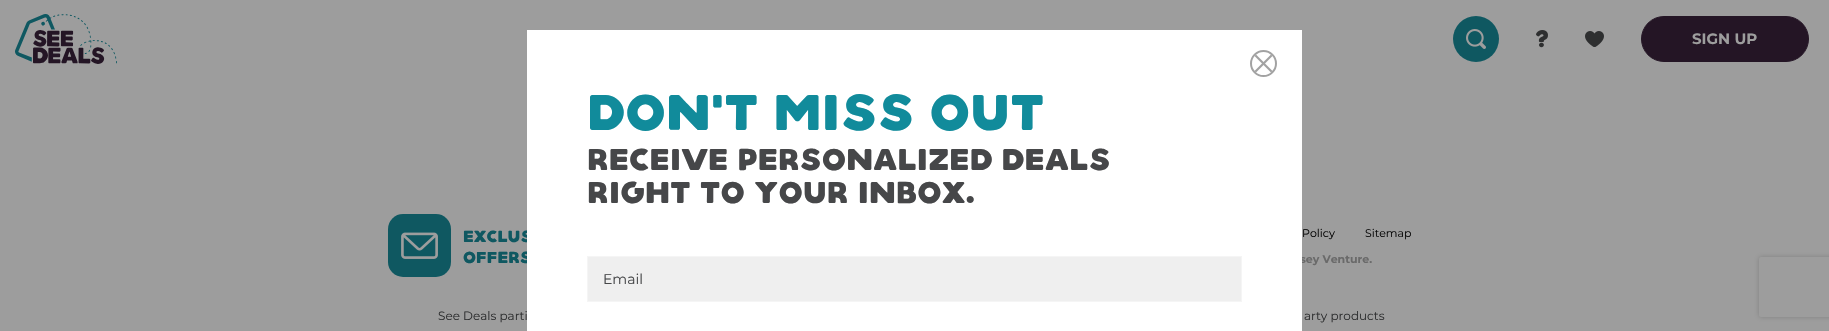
void draw(SkCanvas* canvas) {
    SkPaint paint;
    paint.setAntiAlias(true);
    auto face = [&](const char* family, int weight, float size, bool italic = false) {
        SkFontStyle style(weight, SkFontStyle::kNormal_Width,
            italic ? SkFontStyle::kItalic_Slant : SkFontStyle::kUpright_Slant);
        SkFont result(fontMgr->matchFamilyStyle(family, style), size);
        result.setSubpixel(true);
        return result;
    };
    auto write = [&](const char* s, float x, float y, const SkFont& font, SkColor color) {
        SkPaint ink(SkColor4f::FromColor(color));
        ink.setAntiAlias(true);
        canvas->drawString(s, x, y, font, ink);
    };
    auto block = [&](float x, float y, float w, float h, SkColor color) {
        SkPaint ink(SkColor4f::FromColor(color));
        ink.setAntiAlias(true);
        canvas->drawRect(SkRect::MakeXYWH(x, y, w, h), ink);
    };
    auto card = [&](float x, float y, float w, float h, float radius, SkColor color) {
        SkPaint ink(SkColor4f::FromColor(color));
        ink.setAntiAlias(true);
        canvas->drawRoundRect(SkRect::MakeXYWH(x, y, w, h), radius, radius, ink);
    };
    auto paste = [&](const char* path, float x, float y, float w, float h) {
        auto image = SkImages::DeferredFromEncodedData(SkData::MakeFromFileName(path));
        canvas->drawImageRect(image, SkRect::MakeXYWH(x, y, w, h), SkSamplingOptions());
    };
    canvas->clear(SkColorSetRGB(157, 157, 157));
    paste("pic1.png", 15, 14, 102, 50);
    paint.setColor(SkColorSetRGB(15, 88, 97));
    canvas->drawCircle(1476, 39, 23, paint);
    paste("pic2.png", 1466, 29, 20, 20);
    paste("pic3.png", 1536, 30, 12, 18);
    paste("pic4.png", 1585, 31, 19, 16);
    paint.setColor(SkColorSetRGB(36, 21, 37));
    canvas->drawRoundRect(SkRect::MakeXYWH(1641.5f, 16.5f, 167, 45), 22.5f, 22.5f, paint);
    paint.setStyle(SkPaint::kStroke_Style);
    paint.setStrokeWidth(1);
    canvas->drawRoundRect(SkRect::MakeXYWH(1641.5f, 16.5f, 167, 45), 22.5f, 22.5f, paint);
    auto kFont1 = face("Montserrat", 700, 15);
    write("SIGN UP", 1692, 44, kFont1, SkColorSetRGB(157, 157, 157));
    card(388, 214, 63, 63, 15, SkColorSetRGB(15, 88, 97));
    paste("pic5.png", 401, 232, 37, 27);
    auto kFont2 = face("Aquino", 400, 16);
    write("EXCLUS", 463, 242, kFont2, SkColorSetRGB(15, 88, 97));
    write("OFFERS", 463, 263, kFont2, SkColorSetRGB(15, 88, 97));
    auto kFont3 = face("Montserrat", 400, 11);
    write("Policy", 1302, 237, kFont3, SkColorSetRGB(4, 4, 4));
    write("Sitemap", 1365, 237, kFont3, SkColorSetRGB(4, 4, 4));
    auto kFont4 = face("Montserrat", 700, 11);
    write("sey Venture.", 1300, 263, kFont4, SkColorSetRGB(106, 106, 106));
    auto kFont5 = face("Montserrat", 400, 12);
    write("See Deals parti", 438, 320, kFont5, SkColorSetRGB(46, 47, 48));
    write("arty products", 1304, 320, kFont5, SkColorSetRGB(46, 47, 48));
    block(527, 30, 775, 301, SK_ColorWHITE);
    paint.setStrokeWidth(2);
    paint.setColor(SkColorSetRGB(162, 162, 162));
    canvas->drawCircle(1263.5f, 63.5f, 12.5f, paint);
    paint.setStyle(SkPaint::kFill_Style);
    canvas->drawPath(SkPathBuilder().moveTo(1256, 54.5f).lineTo(1272.5f, 71).lineTo(1271, 72.5f).lineTo(1254.5f, 56).close().detach(), paint);
    canvas->drawPath(SkPathBuilder().moveTo(1256, 72.5f).lineTo(1254.5f, 71).lineTo(1271, 54.5f).lineTo(1272.5f, 56).close().detach(), paint);
    auto kFont6 = face("Aquino", 400, 50);
    write("DON'T MISS OUT", 587, 130, kFont6, SkColorSetRGB(17, 139, 155));
    auto kFont7 = face("Aquino", 400, 30);
    write("RECEIVE PERSONALIZED DEALS", 587, 170, kFont7, SkColorSetRGB(70, 71, 73));
    write("RIGHT TO YOUR INBOX.", 587, 203, kFont7, SkColorSetRGB(70, 71, 73));
    paint.setColor(SkColorSetRGB(239, 239, 239));
    canvas->drawRect(SkRect::MakeXYWH(587.5f, 256.5f, 654, 45), paint);
    paint.setStyle(SkPaint::kStroke_Style);
    paint.setStrokeWidth(1);
    paint.setColor(SkColorSetRGB(245, 245, 245));
    canvas->drawRect(SkRect::MakeXYWH(587.5f, 256.5f, 654, 45), paint);
    auto kFont8 = face("Montserrat", 400, 14);
    write("Email", 603, 284, kFont8, SkColorSetRGB(70, 71, 73));
    canvas->save();
    canvas->clipPath(SkPathBuilder(SkPathFillType::kEvenOdd).moveTo(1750, 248).lineTo(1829, 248).lineTo(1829, 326).lineTo(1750, 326).close().moveTo(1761, 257).lineTo(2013, 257).cubicTo(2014, 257, 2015, 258, 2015, 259).lineTo(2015, 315).cubicTo(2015, 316, 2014, 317, 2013, 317).lineTo(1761, 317).cubicTo(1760, 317, 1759, 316, 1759, 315).lineTo(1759, 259).cubicTo(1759, 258, 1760, 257, 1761, 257).close().detach(), true);
    paint.setStyle(SkPaint::kFill_Style);
    paint.setColor(SkColorSetRGB(128, 128, 128));
    paint.setMaskFilter(SkMaskFilter::MakeBlur(kNormal_SkBlurStyle, 2.5f));
    canvas->drawRoundRect(SkRect::MakeXYWH(1759, 257, 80, 60), 2, 2, paint);
    paint.setMaskFilter(nullptr);
    canvas->restore();
}
